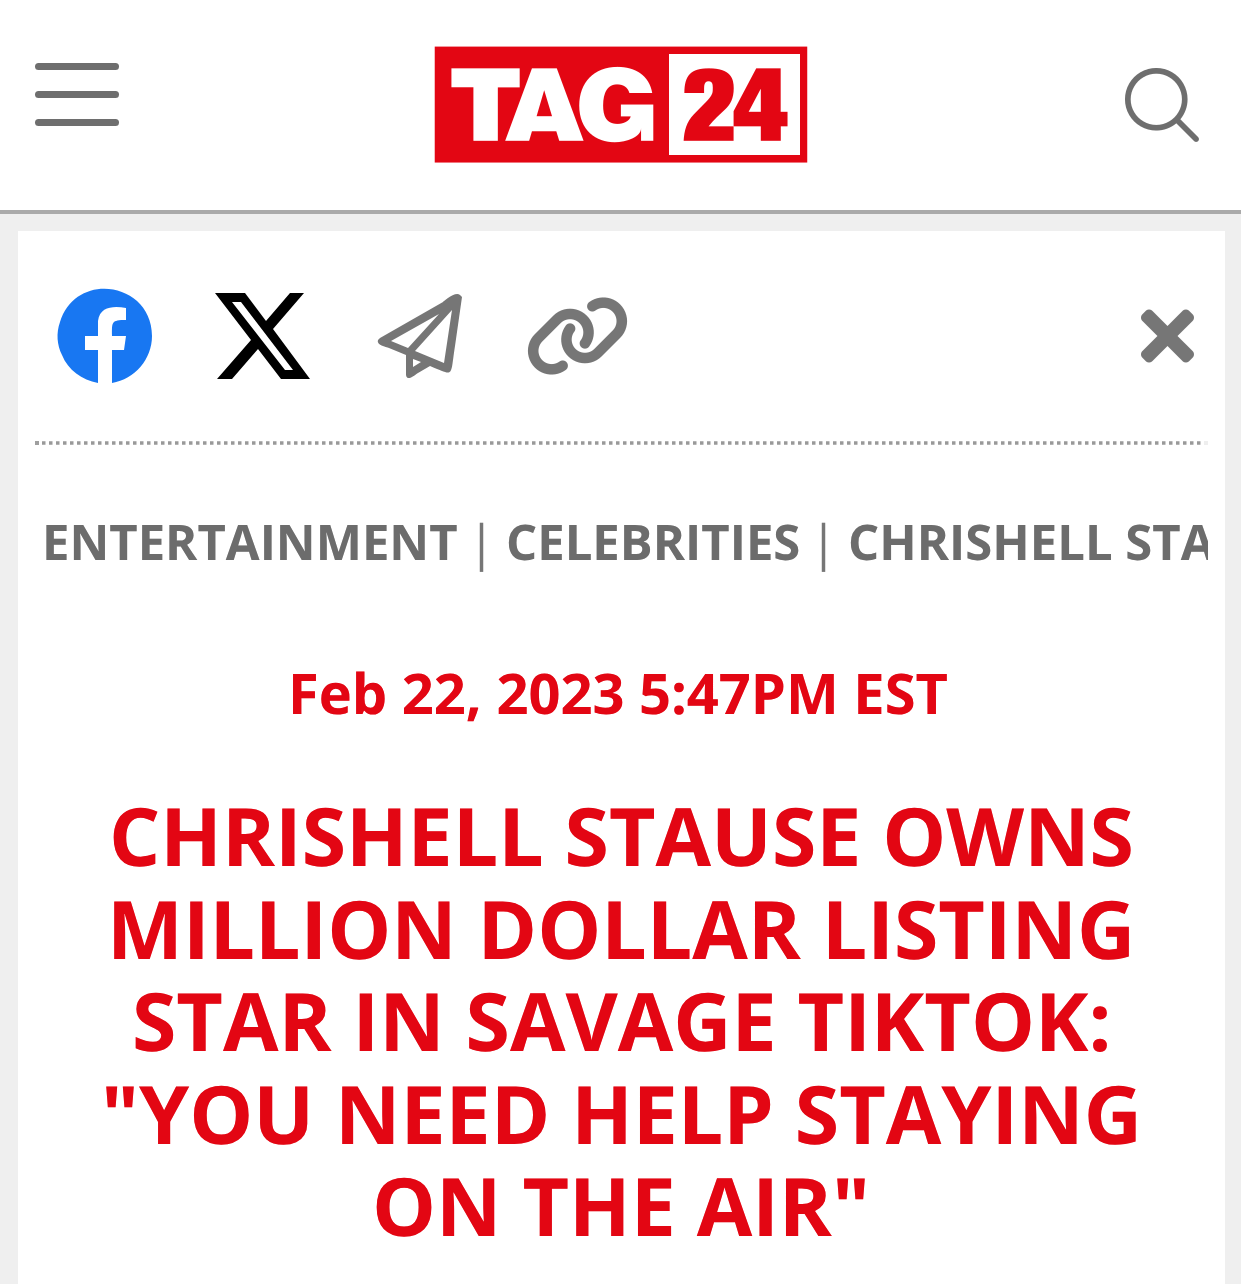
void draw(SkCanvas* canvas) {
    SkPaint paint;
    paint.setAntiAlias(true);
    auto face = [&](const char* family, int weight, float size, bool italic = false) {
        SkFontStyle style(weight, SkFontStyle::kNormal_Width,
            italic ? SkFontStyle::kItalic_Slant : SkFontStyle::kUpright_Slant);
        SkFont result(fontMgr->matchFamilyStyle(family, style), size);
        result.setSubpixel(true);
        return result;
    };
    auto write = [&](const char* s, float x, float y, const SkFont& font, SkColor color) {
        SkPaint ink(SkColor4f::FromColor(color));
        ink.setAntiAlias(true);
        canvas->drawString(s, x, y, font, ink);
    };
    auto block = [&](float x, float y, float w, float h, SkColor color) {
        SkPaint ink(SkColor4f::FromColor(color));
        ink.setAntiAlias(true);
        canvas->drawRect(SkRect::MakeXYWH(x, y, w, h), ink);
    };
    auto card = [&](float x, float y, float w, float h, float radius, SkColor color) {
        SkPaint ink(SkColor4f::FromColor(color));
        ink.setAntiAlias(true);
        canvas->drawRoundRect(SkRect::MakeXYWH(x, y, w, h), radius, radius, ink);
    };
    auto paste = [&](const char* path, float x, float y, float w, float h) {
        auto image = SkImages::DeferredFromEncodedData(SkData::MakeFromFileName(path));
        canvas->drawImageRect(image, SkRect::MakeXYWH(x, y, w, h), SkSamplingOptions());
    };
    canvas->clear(SkColorSetRGB(239, 239, 239));
    block(0, 0, 1241, 210, SK_ColorWHITE);
    block(0, 210, 1241, 4, SkColorSetRGB(170, 170, 170));
    card(35, 91, 84, 7, 3.5f, SkColorSetRGB(110, 110, 110));
    card(35, 63, 84, 7, 3.5f, SkColorSetRGB(110, 110, 110));
    card(35, 119, 84, 7, 3.5f, SkColorSetRGB(110, 110, 110));
    paste("pic1.png", 434, 46, 374, 117);
    paste("pic2.png", 1125, 68, 74, 74);
    block(18, 231, 1207, 1053, SK_ColorWHITE);
    paint.setColor(SkColorSetRGB(24, 119, 242));
    canvas->drawPath(SkPathBuilder().moveTo(152, 336).cubicTo(152, 282, 76, 270, 60, 322).cubicTo(56, 333, 57, 345, 62, 355).cubicTo(68, 370, 82, 380, 98, 383).lineTo(98, 350).lineTo(85, 350).lineTo(85, 336).lineTo(98, 336).lineTo(98, 321).cubicTo(100, 306, 114, 306, 126, 308).lineTo(126, 320).cubicTo(111, 320, 112, 322, 112, 336).lineTo(126, 336).lineTo(124, 350).lineTo(112, 350).lineTo(112, 383).cubicTo(135, 379, 152, 359, 152, 336).close().detach(), paint);
    paint.setColor(SK_ColorBLACK);
    canvas->drawPath(SkPathBuilder().moveTo(290, 293).lineTo(304, 293).lineTo(273, 329).lineTo(310, 379).lineTo(281, 379).lineTo(258, 349).lineTo(232, 379).lineTo(217, 379).lineTo(251, 340).lineTo(215, 293).lineTo(245, 293).lineTo(266, 321).close().moveTo(285, 370).lineTo(293, 370).lineTo(241, 302).lineTo(232, 302).close().detach(), paint);
    paint.setColor(SkColorSetRGB(118, 118, 118));
    canvas->drawPath(SkPathBuilder().moveTo(460, 295).cubicTo(455, 291, 443, 302, 443, 302).lineTo(380, 338).lineTo(378, 340).cubicTo(376, 345, 386, 347, 389, 348).lineTo(406, 355).lineTo(406, 375).cubicTo(407, 382, 415, 375, 418, 373).lineTo(430, 366).cubicTo(455, 376, 450, 378, 455, 346).lineTo(462, 297).close().moveTo(439, 314).lineTo(408, 348).lineTo(391, 341).close().moveTo(413, 367).lineTo(413, 359).lineTo(421, 362).close().moveTo(444, 363).lineTo(415, 351).lineTo(452, 310).close().detach(), paint);
    paste("pic3.png", 527, 297, 101, 78);
    paste("pic4.png", 1141, 309, 53, 54);
    paint.setStyle(SkPaint::kStroke_Style);
    paint.setStrokeWidth(3.5f);
    paint.setColor(SkColorSetRGB(153, 153, 153));
    paint.setPathEffect(SkDashPathEffect::Make({{3.5f, 3.5f}}, 0));
    canvas->drawPath(SkPathBuilder().moveTo(35, 443).lineTo(1207.5f, 443).detach(), paint);
    paint.setPathEffect(nullptr);
    block(1204, 441, 4, 4, SkColorSetRGB(238, 238, 238));
    block(35, 441, 4, 4, SkColorSetRGB(159, 159, 159));
    auto kFont1 = face("Open Sans", 700, 49);
    write("ENTERTAINMENT", 42, 560, kFont1, SkColorSetRGB(108, 108, 108));
    auto kFont2 = face("Open Sans", 400, 49);
    write("|", 468, 560, kFont2, SkColorSetRGB(118, 118, 118));
    write("CELEBRITIES", 506, 560, kFont1, SkColorSetRGB(108, 108, 108));
    write("|", 810, 560, kFont2, SkColorSetRGB(118, 118, 118));
    canvas->save();
    canvas->clipRect(SkRect::MakeXYWH(35, 480, 1173, 171));
    write("CHRISHELL STA", 848, 560, kFont1, SkColorSetRGB(108, 108, 108));
    canvas->restore();
    auto kFont3 = face("Open Sans", 700, 56);
    write("Feb 22, 2023 5:47 PM EST", 288, 714, kFont3, SkColorSetRGB(227, 6, 19));
    auto kFont4 = face("Open Sans", 700, 80.5f);
    write("CHRISHELL STAUSE OWNS", 109, 866, kFont4, SkColorSetRGB(227, 6, 19));
    write("MILLION DOLLAR LISTING", 107, 959, kFont4, SkColorSetRGB(227, 6, 19));
    write("STAR IN SAVAGE TIKTOK:", 132, 1051, kFont4, SkColorSetRGB(227, 6, 19));
    write("\"YOU NEED HELP STAYING", 101, 1144, kFont4, SkColorSetRGB(227, 6, 19));
    write("ON THE AIR\"", 372, 1236, kFont4, SkColorSetRGB(227, 6, 19));
}
